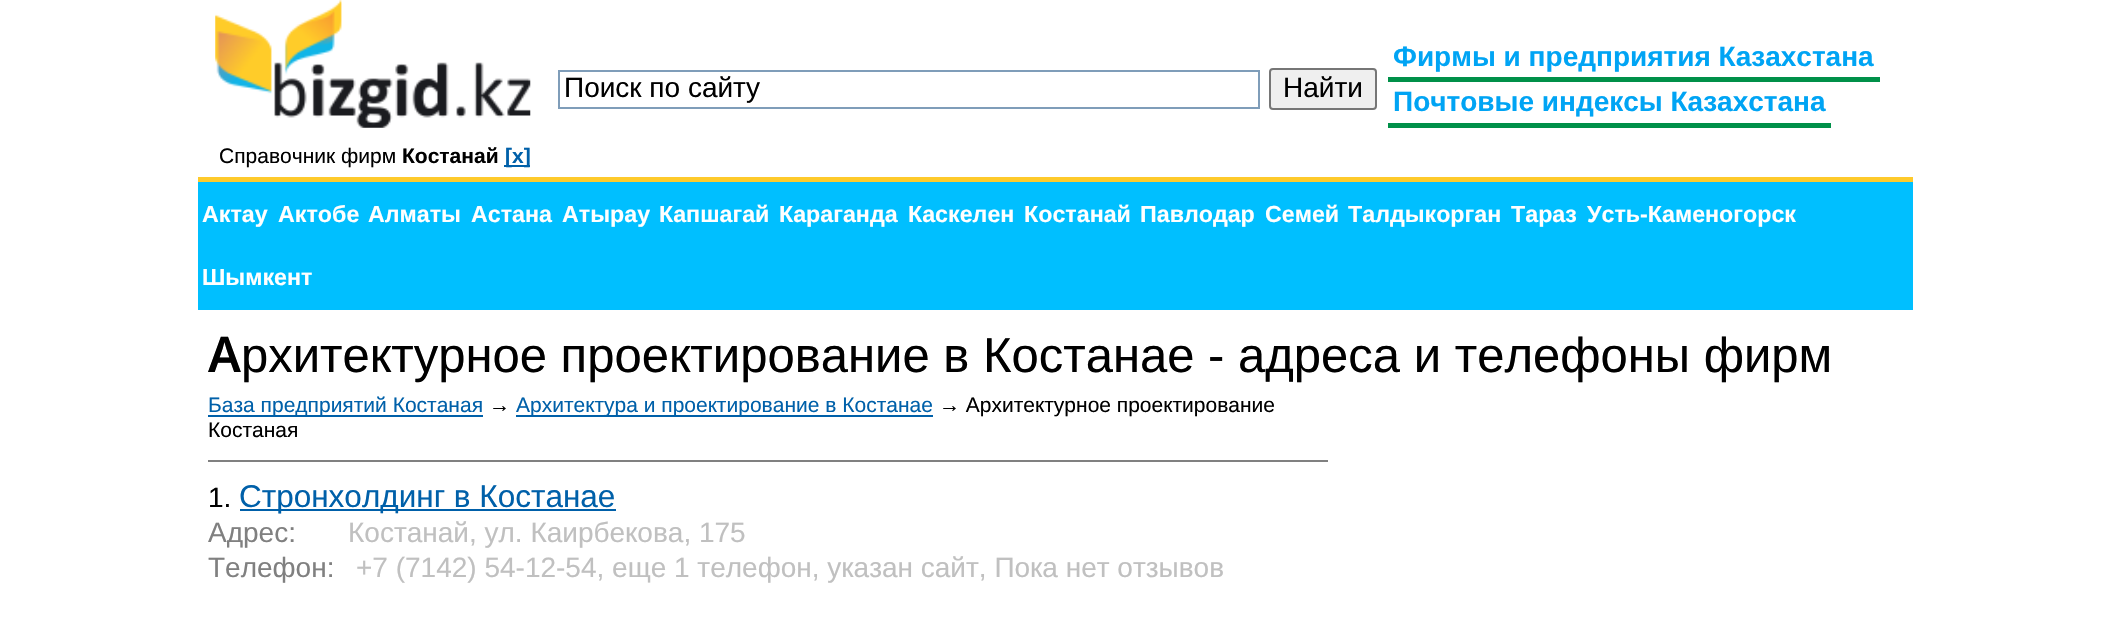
void draw(SkCanvas* canvas) {
    SkPaint paint;
    paint.setAntiAlias(true);
    auto face = [&](const char* family, int weight, float size, bool italic = false) {
        SkFontStyle style(weight, SkFontStyle::kNormal_Width,
            italic ? SkFontStyle::kItalic_Slant : SkFontStyle::kUpright_Slant);
        SkFont result(fontMgr->matchFamilyStyle(family, style), size);
        result.setSubpixel(true);
        return result;
    };
    auto write = [&](const char* s, float x, float y, const SkFont& font, SkColor color) {
        SkPaint ink(SkColor4f::FromColor(color));
        ink.setAntiAlias(true);
        canvas->drawString(s, x, y, font, ink);
    };
    auto block = [&](float x, float y, float w, float h, SkColor color) {
        SkPaint ink(SkColor4f::FromColor(color));
        ink.setAntiAlias(true);
        canvas->drawRect(SkRect::MakeXYWH(x, y, w, h), ink);
    };
    auto paste = [&](const char* path, float x, float y, float w, float h) {
        auto image = SkImages::DeferredFromEncodedData(SkData::MakeFromFileName(path));
        canvas->drawImageRect(image, SkRect::MakeXYWH(x, y, w, h), SkSamplingOptions());
    };
    canvas->clear(SK_ColorWHITE);
    paint.setStyle(SkPaint::kStroke_Style);
    paint.setStrokeWidth(2);
    paint.setColor(SkColorSetRGB(127, 157, 185));
    canvas->drawRect(SkRect::MakeXYWH(559, 71, 700, 37), paint);
    auto kFont1 = face("Liberation Sans", 400, 28);
    write("Поиск по сайту", 564, 97, kFont1, SK_ColorBLACK);
    paint.setStyle(SkPaint::kFill_Style);
    paint.setColor(SkColorSetRGB(239, 239, 239));
    canvas->drawRoundRect(SkRect::MakeXYWH(1270, 69, 106, 40), 3, 3, paint);
    paint.setStyle(SkPaint::kStroke_Style);
    paint.setColor(SkColorSetRGB(118, 118, 118));
    canvas->drawRoundRect(SkRect::MakeXYWH(1270, 69, 106, 40), 3, 3, paint);
    write("Найти", 1283, 97, kFont1, SK_ColorBLACK);
    auto kFont2 = face("Liberation Sans", 700, 28);
    write("Фирмы и предприятия Казахстана", 1393, 66, kFont2, SkColorSetRGB(0, 164, 244));
    block(1388, 77, 492, 5, SkColorSetRGB(0, 144, 73));
    write("Почтовые индексы Казахстана", 1393, 111, kFont2, SkColorSetRGB(0, 164, 244));
    block(1388, 123, 443, 5, SkColorSetRGB(0, 144, 73));
    paste("pic1.png", 215, 0, 316, 128);
    auto kFont3 = face("Liberation Sans", 400, 21);
    write("Справочник фирм", 219, 163, kFont3, SK_ColorBLACK);
    auto kFont4 = face("Liberation Sans", 700, 21);
    write("Костанай", 402, 163, kFont4, SK_ColorBLACK);
    block(504, 165, 26, 2, SkColorSetRGB(0, 96, 169));
    write("[x]", 505, 163, kFont4, SkColorSetRGB(0, 96, 169));
    block(198, 182, 1715, 128, SkColorSetRGB(0, 191, 255));
    block(198, 177, 1715, 5, SkColorSetRGB(254, 202, 43));
    auto kFont5 = face("Liberation Sans", 700, 23.25f);
    write("Актау", 202, 222, kFont5, SK_ColorWHITE);
    write("Актобе", 278, 222, kFont5, SK_ColorWHITE);
    write("Алматы", 368, 222, kFont5, SK_ColorWHITE);
    write("Астана", 471, 222, kFont5, SK_ColorWHITE);
    write("Атырау", 562, 222, kFont5, SK_ColorWHITE);
    write("Капшагай", 659, 222, kFont5, SK_ColorWHITE);
    write("Караганда", 779, 222, kFont5, SK_ColorWHITE);
    write("Каскелен", 908, 222, kFont5, SK_ColorWHITE);
    write("Костанай", 1024, 222, kFont5, SK_ColorWHITE);
    write("Павлодар", 1140, 222, kFont5, SK_ColorWHITE);
    write("Семей", 1265, 222, kFont5, SK_ColorWHITE);
    write("Талдыкорган", 1348, 222, kFont5, SK_ColorWHITE);
    write("Тараз", 1511, 222, kFont5, SK_ColorWHITE);
    write("Усть-Каменогорск", 1587, 222, kFont5, SK_ColorWHITE);
    write("Шымкент", 202, 285, kFont5, SK_ColorWHITE);
    auto kFont6 = face("Noto Sans", 600, 49);
    write("А", 208, 372, kFont6, SK_ColorBLACK);
    auto kFont7 = face("Liberation Sans", 400, 49);
    write("рхитектурное проектирование в Костанае - адреса и телефоны фирм", 241, 372, kFont7, SK_ColorBLACK);
    block(208, 460, 1120, 2, SkColorSetRGB(128, 128, 128));
    block(208, 415, 275, 2, SkColorSetRGB(0, 96, 169));
    write("База предприятий Костаная", 208, 412, kFont3, SkColorSetRGB(0, 96, 169));
    write("→", 489, 412, kFont3, SK_ColorBLACK);
    block(516, 415, 417, 2, SkColorSetRGB(0, 96, 169));
    write("Архитектура и проектирование в Костанае", 516, 412, kFont3, SkColorSetRGB(0, 96, 169));
    write("→ Архитектурное проектирование", 939, 412, kFont3, SK_ColorBLACK);
    write("Костаная", 208, 437, kFont3, SK_ColorBLACK);
    write("1.", 208, 507, kFont1, SK_ColorBLACK);
    block(240, 509, 376, 2, SkColorSetRGB(0, 96, 169));
    auto kFont8 = face("Liberation Sans", 400, 31.5f);
    write("Стронхолдинг в Костанае", 239, 507, kFont8, SkColorSetRGB(0, 96, 169));
    write("Адрес:", 208, 542, kFont1, SkColorSetRGB(128, 128, 128));
    write("Костанай, ул. Каирбекова, 175", 348, 542, kFont1, SkColorSetRGB(192, 192, 192));
    write("Телефон:", 208, 577, kFont1, SkColorSetRGB(128, 128, 128));
    write("+7 (7142) 54-12-54, еще 1 телефон, указан сайт, Пока нет отзывов", 356, 577, kFont1, SkColorSetRGB(192, 192, 192));
}
